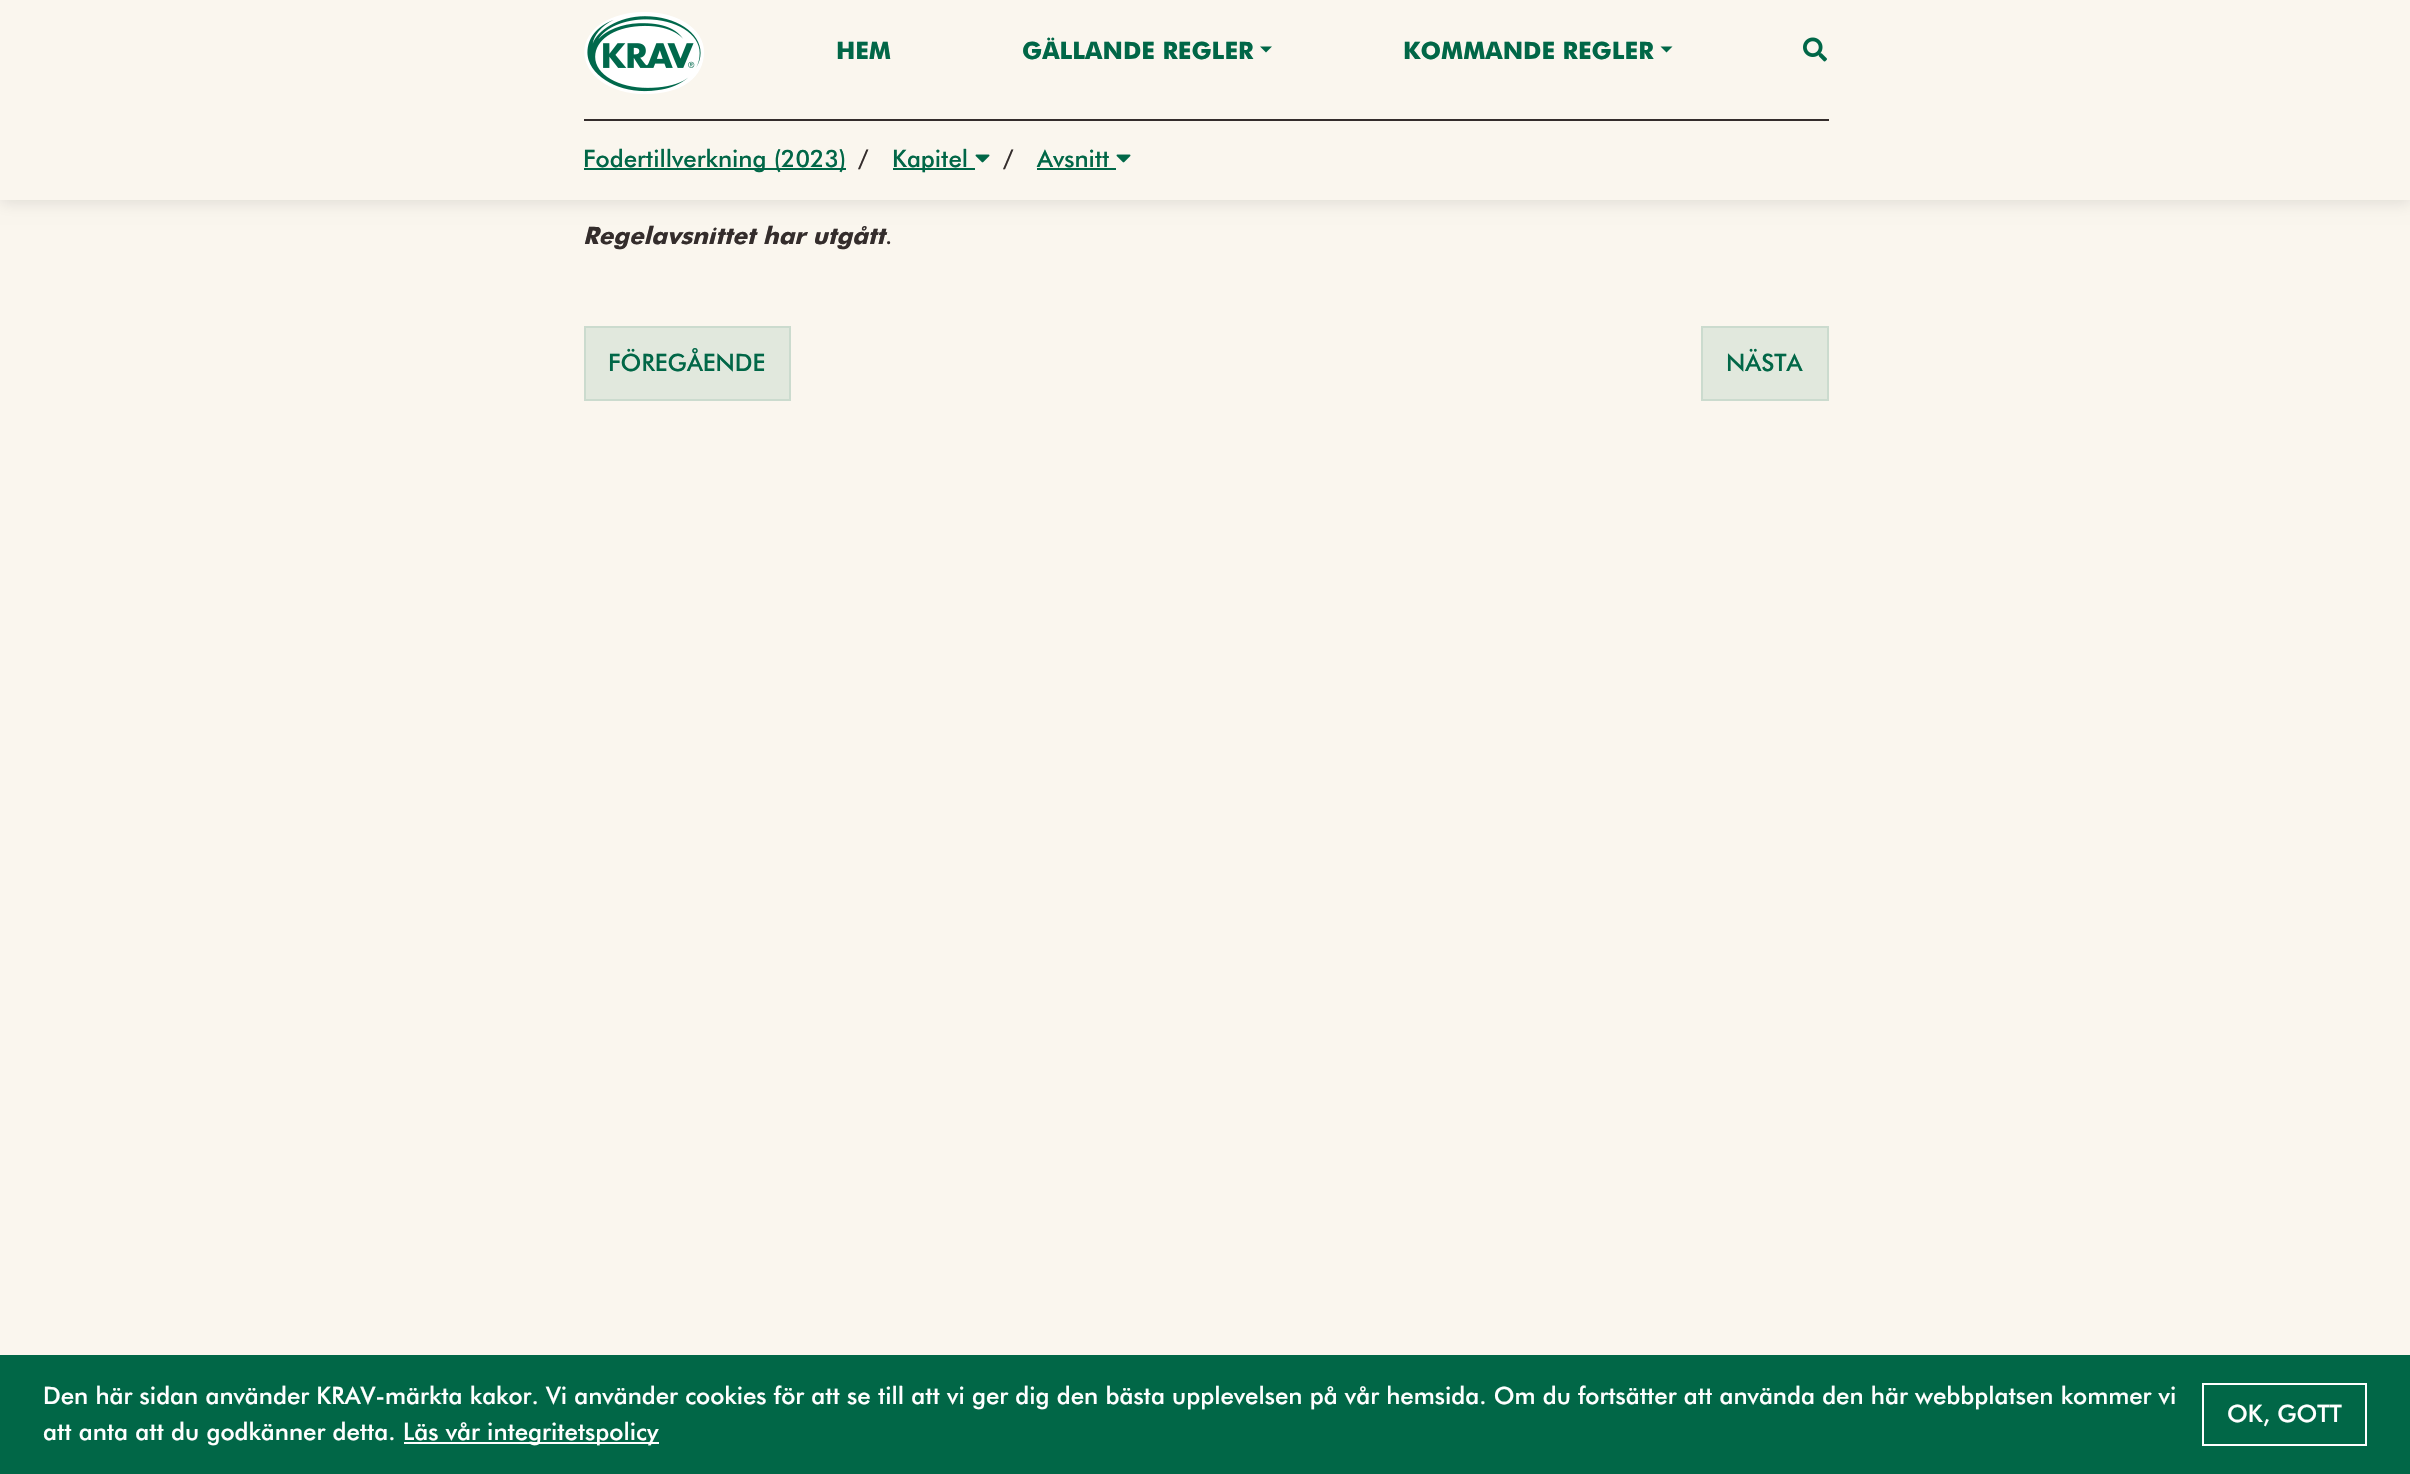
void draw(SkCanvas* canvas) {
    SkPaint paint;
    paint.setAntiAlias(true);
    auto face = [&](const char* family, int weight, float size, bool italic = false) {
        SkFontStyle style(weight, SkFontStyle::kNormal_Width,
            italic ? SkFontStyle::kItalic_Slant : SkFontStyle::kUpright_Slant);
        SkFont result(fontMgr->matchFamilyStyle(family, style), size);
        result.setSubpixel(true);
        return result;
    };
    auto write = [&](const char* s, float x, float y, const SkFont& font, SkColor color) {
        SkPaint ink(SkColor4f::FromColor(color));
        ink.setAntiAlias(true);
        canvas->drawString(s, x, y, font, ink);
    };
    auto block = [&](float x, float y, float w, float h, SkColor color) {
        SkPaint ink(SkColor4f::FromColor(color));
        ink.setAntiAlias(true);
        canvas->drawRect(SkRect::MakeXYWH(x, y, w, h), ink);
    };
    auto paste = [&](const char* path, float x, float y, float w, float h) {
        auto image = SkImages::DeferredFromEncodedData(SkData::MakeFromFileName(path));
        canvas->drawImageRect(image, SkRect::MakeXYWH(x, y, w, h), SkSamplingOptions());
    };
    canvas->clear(SkColorSetRGB(250, 246, 238));
    paint.setColor(SkColorSetARGB(26, 0, 0, 0));
    paint.setMaskFilter(SkMaskFilter::MakeBlur(kNormal_SkBlurStyle, 7.5f));
    canvas->drawRect(SkRect::MakeXYWH(0, 3, 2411, 200), paint);
    paint.setMaskFilter(nullptr);
    block(0, 0, 2410, 200, SkColorSetRGB(250, 246, 238));
    block(584, 119, 1245, 2, SkColorSetRGB(52, 45, 44));
    paste("pic1.png", 584, 12, 120, 82);
    auto kFont1 = face("Futura", 700, 24);
    write("HEM", 836, 59, kFont1, SkColorSetRGB(1, 103, 71));
    write("GÄLLANDE REGLER", 1022, 59, kFont1, SkColorSetRGB(1, 103, 71));
    paint.setColor(SkColorSetRGB(0, 103, 71));
    canvas->drawPath(SkPathBuilder().moveTo(1260, 46.5f).lineTo(1272, 46.5f).lineTo(1266, 52.5f).close().detach(), paint);
    write("KOMMANDE REGLER", 1403, 59, kFont1, SkColorSetRGB(1, 103, 71));
    canvas->drawPath(SkPathBuilder().moveTo(1660.5f, 46.5f).lineTo(1672.5f, 46.5f).lineTo(1666.5f, 52.5f).close().detach(), paint);
    paste("pic2.png", 1803, 37, 24, 25);
    block(584, 168, 262, 2, SkColorSetRGB(0, 103, 71));
    auto kFont2 = face("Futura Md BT", 500, 24);
    write("Fodertillverkning (2023)", 583, 167, kFont2, SkColorSetRGB(1, 103, 71));
    write("/", 858, 167, kFont2, SkColorSetRGB(52, 45, 44));
    block(893, 168, 82, 2, SkColorSetRGB(0, 103, 71));
    write("Kapitel", 892, 167, kFont2, SkColorSetRGB(1, 103, 71));
    paste("pic3.png", 975, 154, 15, 9);
    write("/", 1003, 167, kFont2, SkColorSetRGB(52, 45, 44));
    write("Avsnitt", 1037, 167, kFont2, SkColorSetRGB(1, 103, 71));
    block(1037, 168, 79, 2, SkColorSetRGB(0, 103, 71));
    paste("pic3.png", 1116, 154, 15, 9);
    auto kFont3 = face("Futura", 700, 24, true);
    write("Regelavsnittet har utgått", 583, 244, kFont3, SkColorSetRGB(52, 45, 44));
    write(".", 885, 244, kFont2, SkColorSetRGB(52, 45, 44));
    paint.setColor(SkColorSetRGB(225, 232, 221));
    canvas->drawRect(SkRect::MakeXYWH(585, 327, 205, 73), paint);
    paint.setStyle(SkPaint::kStroke_Style);
    paint.setStrokeWidth(2);
    paint.setColor(SkColorSetRGB(203, 219, 206));
    canvas->drawRect(SkRect::MakeXYWH(585, 327, 205, 73), paint);
    write("FÖREGÅENDE", 608, 371, kFont2, SkColorSetRGB(1, 103, 71));
    paint.setStyle(SkPaint::kFill_Style);
    paint.setColor(SkColorSetRGB(225, 232, 221));
    canvas->drawRect(SkRect::MakeXYWH(1702, 327, 126, 73), paint);
    paint.setStyle(SkPaint::kStroke_Style);
    paint.setColor(SkColorSetRGB(203, 219, 206));
    canvas->drawRect(SkRect::MakeXYWH(1702, 327, 126, 73), paint);
    write("NÄSTA", 1726, 371, kFont2, SkColorSetRGB(1, 103, 71));
    block(0, 1355, 2410, 119, SkColorSetRGB(1, 103, 71));
    write("Den här sidan använder KRAV-märkta kakor. Vi använder cookies för att se till att vi ger dig den bästa upplevelsen på vår hemsida. Om du fortsätter att använda den här webbplatsen kommer vi", 43, 1404, kFont2, SK_ColorWHITE);
    write("att anta att du godkänner detta.", 43, 1440, kFont2, SK_ColorWHITE);
    block(404, 1442, 255, 2, SK_ColorWHITE);
    write("Läs vår integritetspolicy", 403, 1440, kFont2, SK_ColorWHITE);
    paint.setColor(SK_ColorWHITE);
    canvas->drawRect(SkRect::MakeXYWH(2203, 1384, 163, 61), paint);
    write("OK, GOTT", 2227, 1422, kFont2, SK_ColorWHITE);
}
